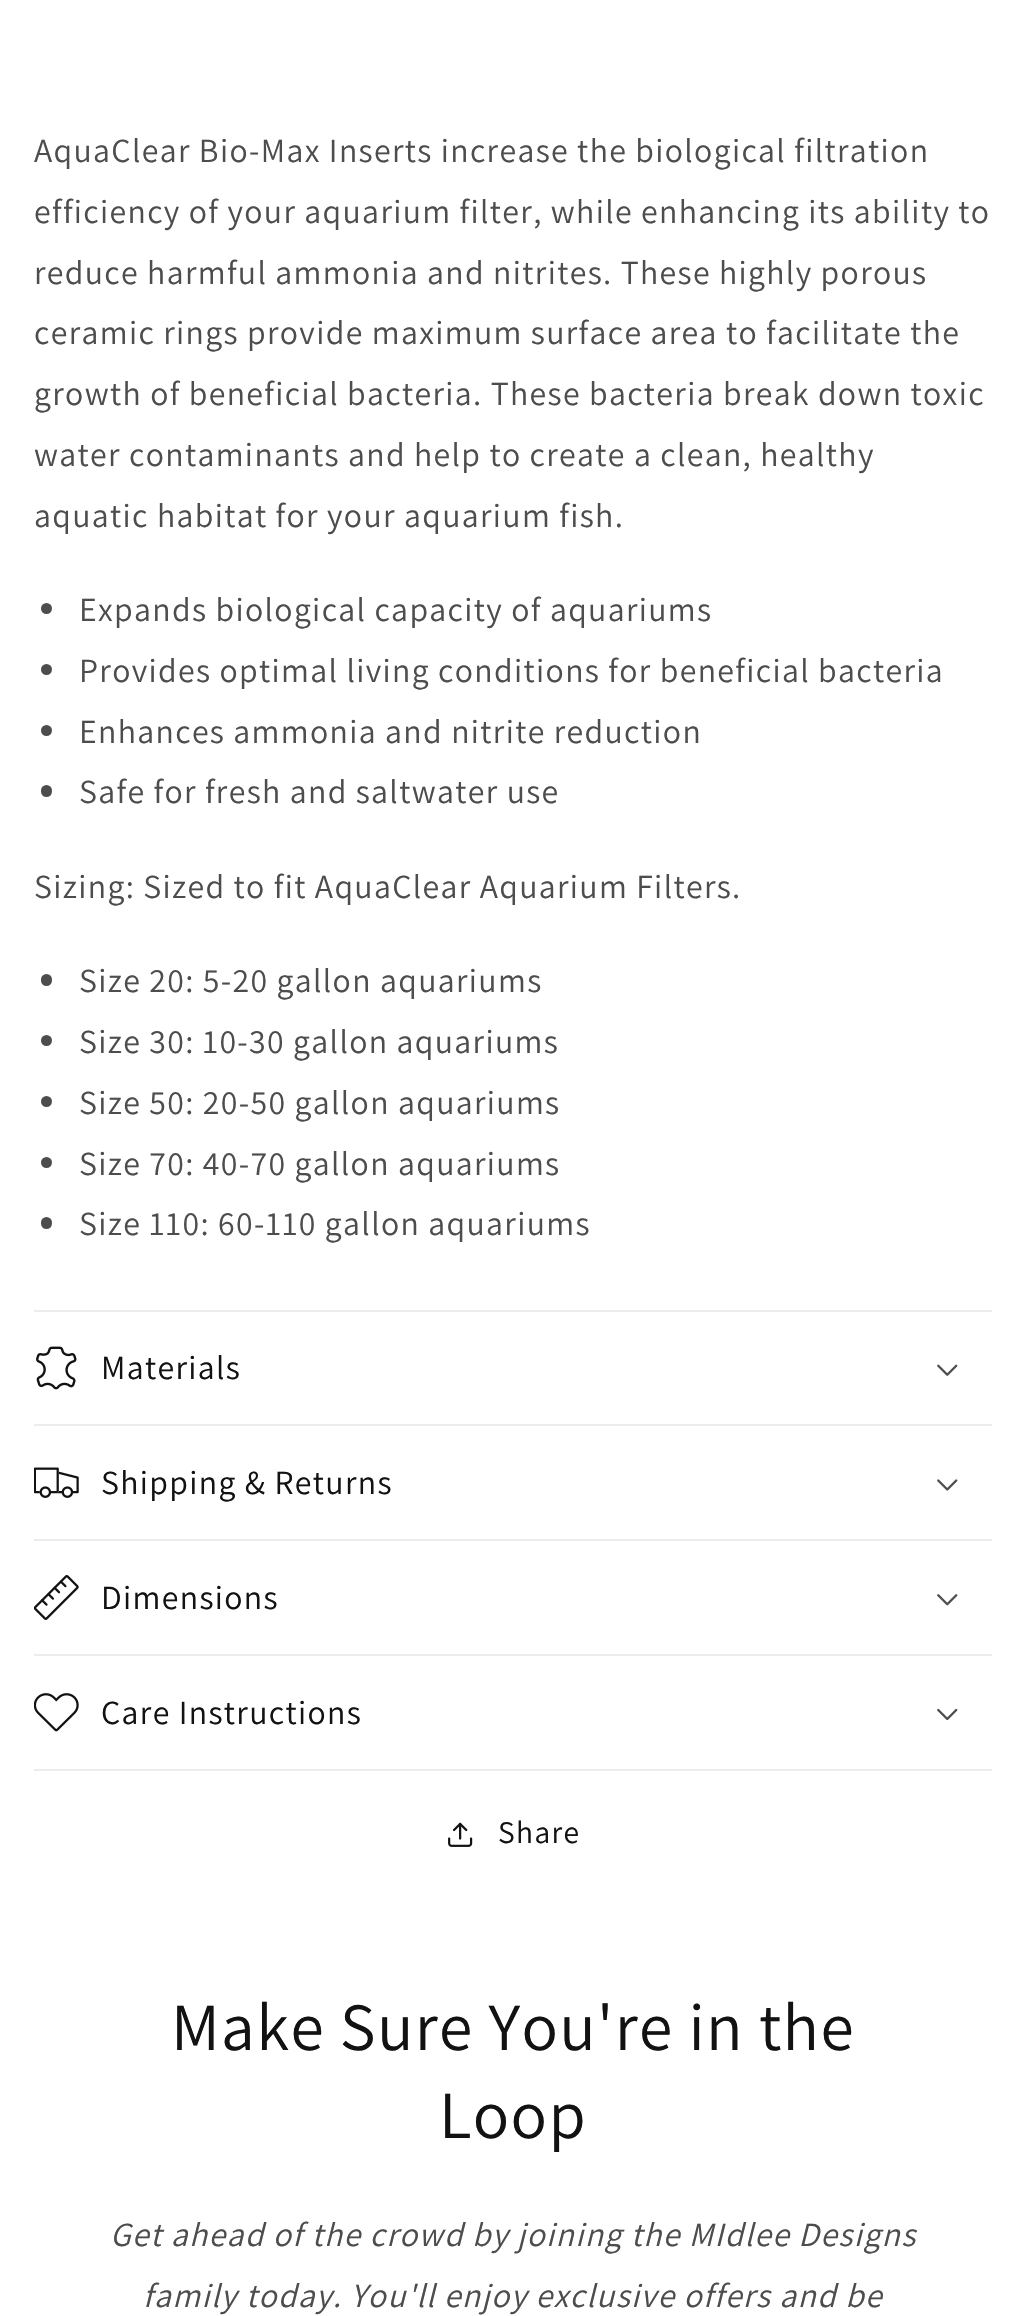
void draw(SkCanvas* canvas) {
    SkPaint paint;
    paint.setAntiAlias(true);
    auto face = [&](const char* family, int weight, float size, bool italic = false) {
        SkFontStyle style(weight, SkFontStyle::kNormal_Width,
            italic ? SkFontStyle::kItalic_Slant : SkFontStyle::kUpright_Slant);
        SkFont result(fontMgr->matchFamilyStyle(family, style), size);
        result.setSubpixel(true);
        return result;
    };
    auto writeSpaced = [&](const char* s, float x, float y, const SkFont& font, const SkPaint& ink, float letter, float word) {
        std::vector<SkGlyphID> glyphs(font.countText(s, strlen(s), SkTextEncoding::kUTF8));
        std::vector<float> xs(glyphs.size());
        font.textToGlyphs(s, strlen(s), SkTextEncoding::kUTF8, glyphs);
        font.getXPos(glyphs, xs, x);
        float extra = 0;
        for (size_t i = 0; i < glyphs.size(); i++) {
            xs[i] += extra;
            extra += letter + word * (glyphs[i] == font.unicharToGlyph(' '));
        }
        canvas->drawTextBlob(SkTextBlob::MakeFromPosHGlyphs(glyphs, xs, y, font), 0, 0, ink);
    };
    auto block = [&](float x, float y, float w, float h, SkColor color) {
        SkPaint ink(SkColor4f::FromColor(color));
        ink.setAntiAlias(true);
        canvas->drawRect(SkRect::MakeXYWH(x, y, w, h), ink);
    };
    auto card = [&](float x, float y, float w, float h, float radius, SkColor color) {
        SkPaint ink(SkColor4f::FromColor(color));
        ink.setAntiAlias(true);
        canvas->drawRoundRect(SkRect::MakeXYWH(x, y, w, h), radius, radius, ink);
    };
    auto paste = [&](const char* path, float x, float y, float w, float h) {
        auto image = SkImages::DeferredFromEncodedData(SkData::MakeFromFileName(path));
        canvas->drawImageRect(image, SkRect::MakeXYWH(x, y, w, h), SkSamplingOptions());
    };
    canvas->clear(SK_ColorWHITE);
    auto kFont1 = face("Assistant", 400, 33.75f);
    paint.setColor(SkColorSetRGB(77, 77, 77));
    writeSpaced("AquaClear Bio-Max Inserts increase the biological filtration", 34, 162, kFont1, paint, 1.35f, 0);
    writeSpaced("efficiency of your aquarium filter, while enhancing its ability to", 34, 223, kFont1, paint, 1.35f, 0);
    writeSpaced("reduce harmful ammonia and nitrites. These highly porous", 34, 284, kFont1, paint, 1.35f, 0);
    writeSpaced("ceramic rings provide maximum surface area to facilitate the", 34, 344, kFont1, paint, 1.35f, 0);
    writeSpaced("growth of beneficial bacteria. These bacteria break down toxic", 34, 405, kFont1, paint, 1.35f, 0);
    writeSpaced("water contaminants and help to create a clean, healthy", 34, 466, kFont1, paint, 1.35f, 0);
    writeSpaced("aquatic habitat for your aquarium fish.", 34, 527, kFont1, paint, 1.35f, 0);
    canvas->drawCircle(46.5f, 608.5f, 5.5f, paint);
    writeSpaced("Expands biological capacity of aquariums", 79, 621, kFont1, paint, 1.35f, 0);
    canvas->drawCircle(46.5f, 669.5f, 5.5f, paint);
    writeSpaced("Provides optimal living conditions for beneficial bacteria", 79, 682, kFont1, paint, 1.35f, 0);
    canvas->drawCircle(46.5f, 730.5f, 5.5f, paint);
    writeSpaced("Enhances ammonia and nitrite reduction", 79, 743, kFont1, paint, 1.35f, 0);
    card(41, 785, 11, 12, 5.5f, SkColorSetRGB(77, 77, 77));
    writeSpaced("Safe for fresh and saltwater use", 79, 803, kFont1, paint, 1.35f, 0);
    writeSpaced("Sizing: Sized to fit AquaClear Aquarium Filters.", 34, 898, kFont1, paint, 1.35f, 0);
    card(41, 974, 11, 12, 5.5f, SkColorSetRGB(77, 77, 77));
    writeSpaced("Size 20: 5-20 gallon aquariums", 79, 992, kFont1, paint, 1.35f, 0);
    canvas->drawCircle(46.5f, 1040.5f, 5.5f, paint);
    writeSpaced("Size 30: 10-30 gallon aquariums", 79, 1053, kFont1, paint, 1.35f, 0);
    canvas->drawCircle(46.5f, 1101.5f, 5.5f, paint);
    writeSpaced("Size 50: 20-50 gallon aquariums", 79, 1114, kFont1, paint, 1.35f, 0);
    canvas->drawCircle(46.5f, 1162.5f, 5.5f, paint);
    writeSpaced("Size 70: 40-70 gallon aquariums", 79, 1175, kFont1, paint, 1.35f, 0);
    card(41, 1217, 11, 12, 5.5f, SkColorSetRGB(77, 77, 77));
    writeSpaced("Size 110: 60-110 gallon aquariums", 79, 1235, kFont1, paint, 1.35f, 0);
    block(34, 1310, 958, 2, SkColorSetRGB(236, 236, 236));
    block(34, 1424, 958, 2, SkColorSetRGB(236, 236, 236));
    paste("pic1.png", 36, 1346, 41, 44);
    paint.setColor(SkColorSetRGB(18, 18, 18));
    writeSpaced("Materials", 101, 1379, kFont1, paint, 1.35f, 0);
    paste("pic2.png", 937, 1364, 21, 12);
    block(34, 1539, 958, 2, SkColorSetRGB(236, 236, 236));
    paste("pic3.png", 34, 1467, 45, 31);
    writeSpaced("Shipping & Returns", 101, 1494, kFont1, paint, 1.35f, 0);
    paste("pic4.png", 937, 1479, 21, 12);
    block(34, 1654, 958, 2, SkColorSetRGB(236, 236, 236));
    paste("pic5.png", 34, 1575, 45, 45);
    writeSpaced("Dimensions", 101, 1609, kFont1, paint, 1.35f, 0);
    paste("pic6.png", 937, 1594, 21, 12);
    block(34, 1769, 958, 2, SkColorSetRGB(236, 236, 236));
    paste("pic7.png", 34, 1693, 45, 39);
    writeSpaced("Care Instructions", 101, 1724, kFont1, paint, 1.35f, 0);
    paste("pic8.png", 937, 1708, 21, 13);
    paste("pic9.png", 448, 1822, 25, 25);
    auto kFont2 = face("Assistant", 400, 31.5f);
    writeSpaced("Share", 498, 1843, kFont2, paint, 1.35f, 0);
    auto kFont3 = face("Assistant", 400, 67.5f);
    writeSpaced("Make Sure You're in the", 171, 2050, kFont3, paint, 1.35f, 0);
    writeSpaced("Loop", 439, 2138, kFont3, paint, 1.35f, 0);
    auto kFont4 = face("Assistant", 400, 33.75f, true);
    paint.setColor(SkColorSetRGB(77, 77, 77));
    writeSpaced("Get ahead of the crowd by joining the MIdlee Designs", 110, 2246, kFont4, paint, 1.35f, 0);
    writeSpaced("family today. You'll enjoy exclusive offers and be", 143, 2307, kFont4, paint, 1.35f, 0);
}
